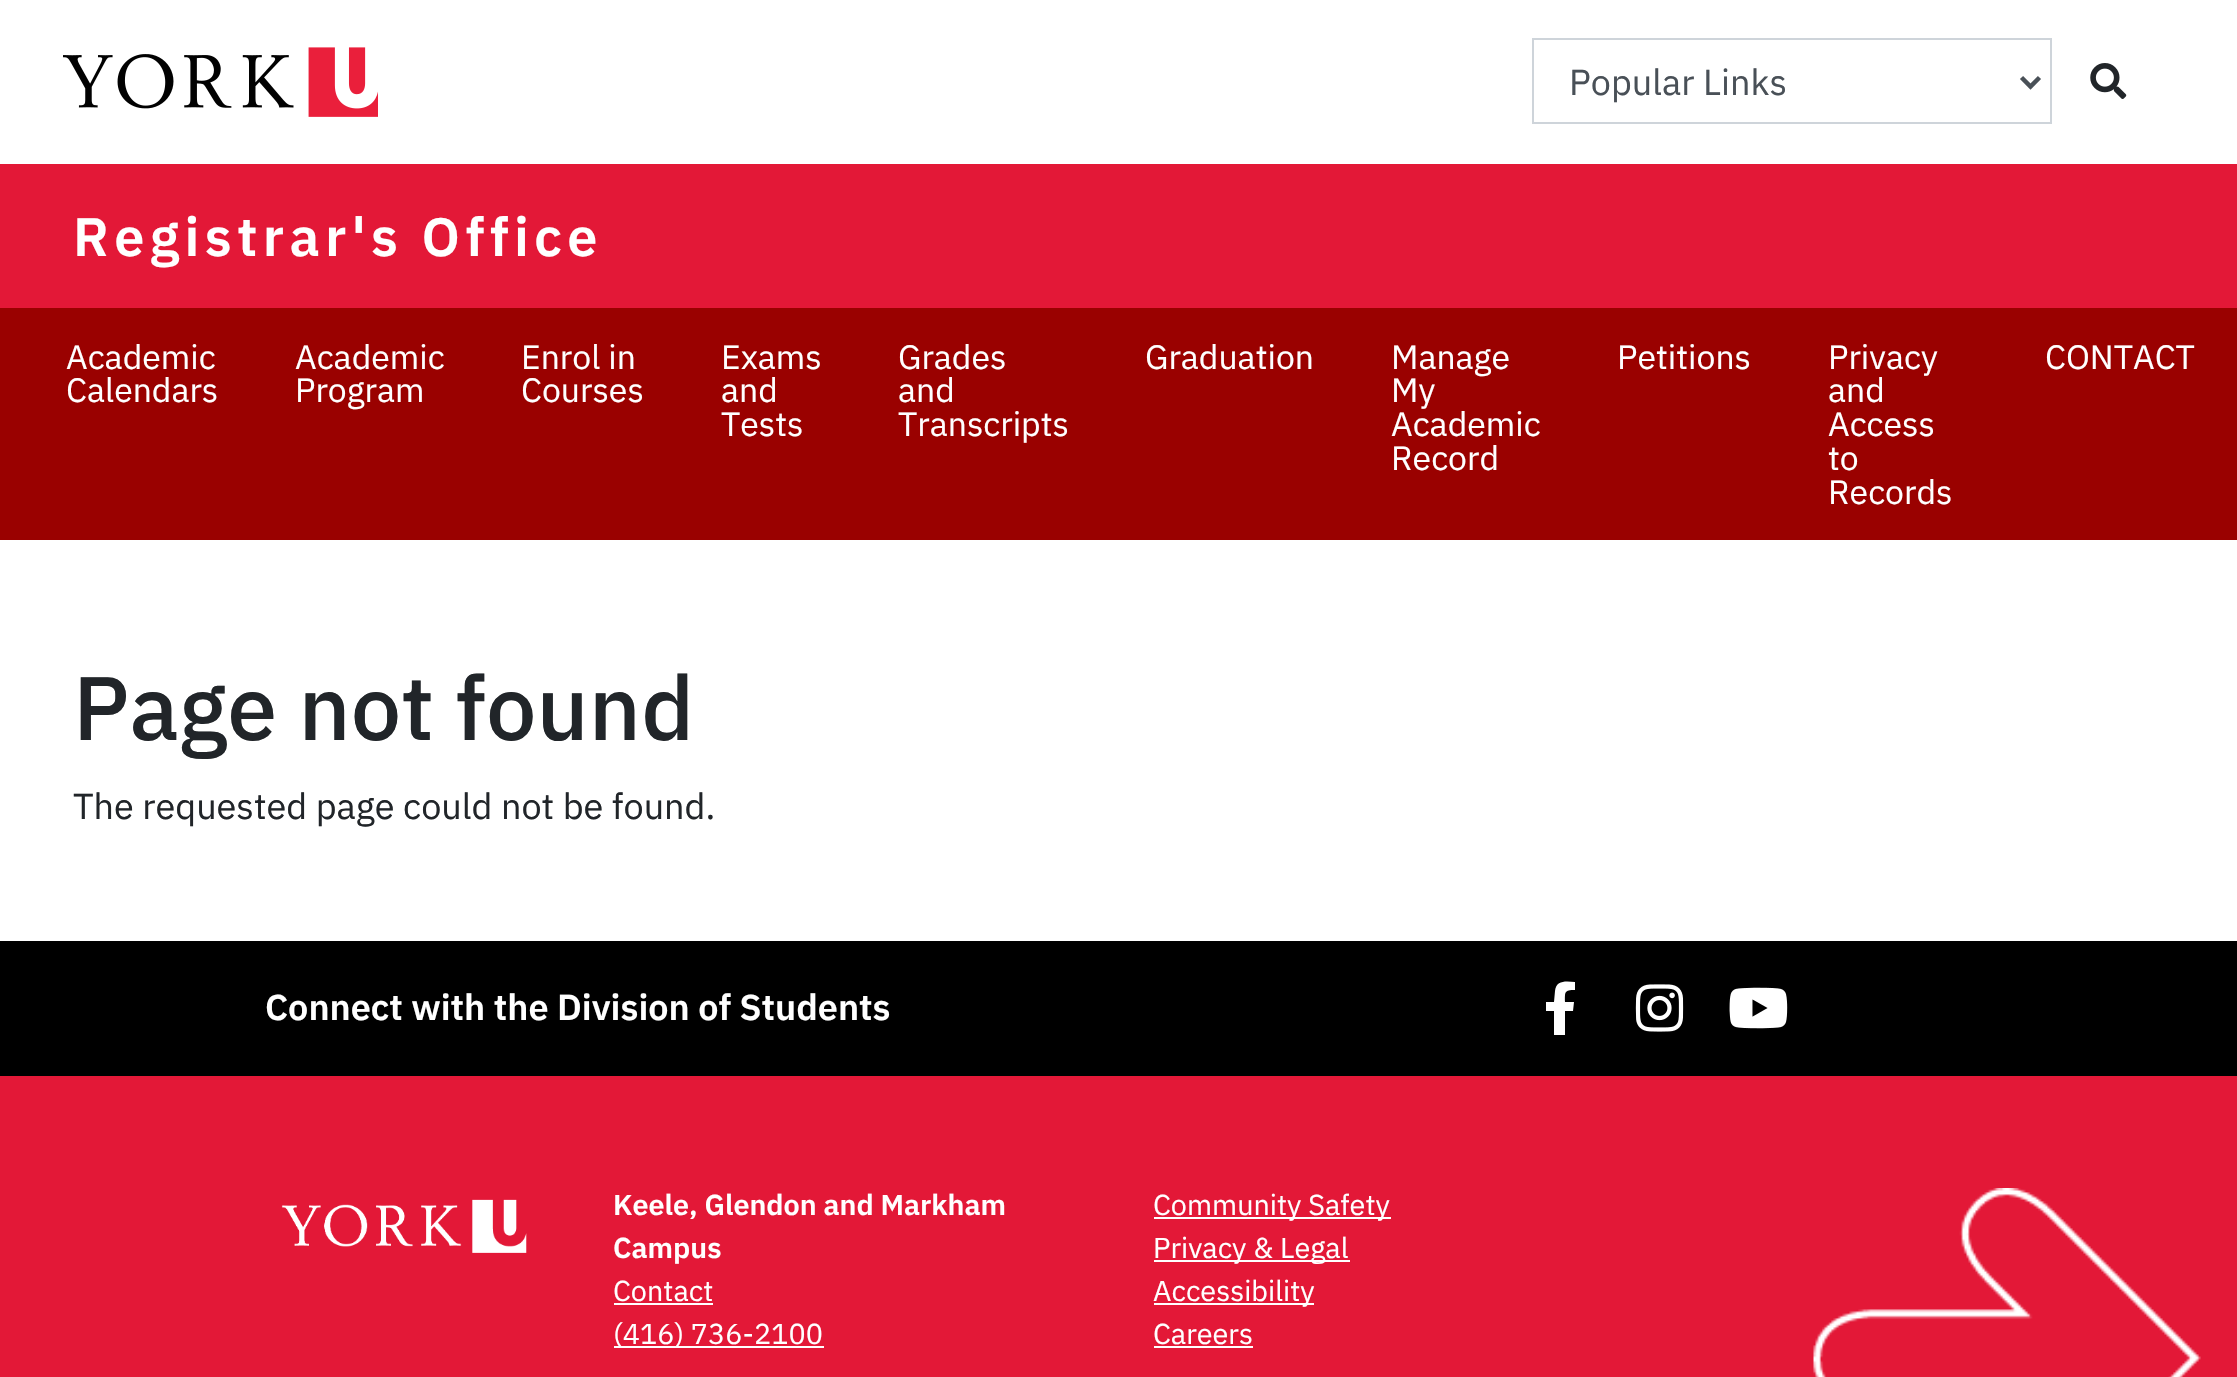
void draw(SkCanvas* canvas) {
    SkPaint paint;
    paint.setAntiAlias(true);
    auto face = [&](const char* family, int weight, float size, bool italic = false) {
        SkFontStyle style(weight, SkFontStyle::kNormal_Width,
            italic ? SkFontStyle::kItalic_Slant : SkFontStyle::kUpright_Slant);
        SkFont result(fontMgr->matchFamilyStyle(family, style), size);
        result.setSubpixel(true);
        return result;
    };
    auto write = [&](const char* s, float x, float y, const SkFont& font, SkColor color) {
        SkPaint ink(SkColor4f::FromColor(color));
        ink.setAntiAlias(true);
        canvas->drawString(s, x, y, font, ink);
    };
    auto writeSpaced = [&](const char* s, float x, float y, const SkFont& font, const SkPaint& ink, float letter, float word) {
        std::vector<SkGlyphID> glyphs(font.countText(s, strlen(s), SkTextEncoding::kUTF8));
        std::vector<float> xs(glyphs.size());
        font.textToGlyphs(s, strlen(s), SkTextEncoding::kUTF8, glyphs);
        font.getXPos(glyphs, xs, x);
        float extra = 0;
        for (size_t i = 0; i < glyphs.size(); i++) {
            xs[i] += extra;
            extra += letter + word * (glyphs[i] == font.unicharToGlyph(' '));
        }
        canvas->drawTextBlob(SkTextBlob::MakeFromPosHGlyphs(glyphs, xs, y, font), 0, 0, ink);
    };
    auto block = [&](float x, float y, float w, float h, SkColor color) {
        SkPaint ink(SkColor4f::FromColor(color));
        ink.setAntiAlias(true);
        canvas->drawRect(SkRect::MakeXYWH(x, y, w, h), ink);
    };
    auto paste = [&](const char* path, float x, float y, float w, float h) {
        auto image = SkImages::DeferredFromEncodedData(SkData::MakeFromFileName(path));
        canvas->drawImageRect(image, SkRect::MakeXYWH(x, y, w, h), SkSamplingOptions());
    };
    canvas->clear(SK_ColorWHITE);
    paste("pic1.png", 63, 47, 315, 70);
    paint.setStyle(SkPaint::kStroke_Style);
    paint.setStrokeWidth(2);
    paint.setColor(SkColorSetRGB(206, 212, 218));
    canvas->drawRect(SkRect::MakeXYWH(1533, 39, 518, 84), paint);
    paint.setStrokeWidth(4.5f);
    paint.setColor(SkColorSetRGB(73, 80, 87));
    canvas->drawPath(SkPathBuilder().moveTo(2021.5f, 77.5f).lineTo(2030.5f, 86.5f).lineTo(2039.5f, 77.5f).detach(), paint);
    auto kFont1 = face("IBM Plex Sans", 400, 36);
    write("Popular Links", 1569, 95, kFont1, SkColorSetRGB(73, 80, 87));
    paste("pic2.png", 2090, 63, 37, 36);
    block(0, 164, 2237, 144, SkColorSetRGB(227, 24, 55));
    auto kFont2 = face("IBM Plex Sans", 600, 54);
    paint.setStyle(SkPaint::kFill_Style);
    paint.setColor(SK_ColorWHITE);
    writeSpaced("Registrar's Office", 73, 256, kFont2, paint, 5.4f, 0);
    block(0, 308, 2237, 232, SkColorSetRGB(154, 1, 0));
    auto kFont3 = face("IBM Plex Sans", 400, 33.75f);
    write("Academic", 66, 369, kFont3, SK_ColorWHITE);
    write("Calendars", 66, 402, kFont3, SK_ColorWHITE);
    write("Academic", 295, 369, kFont3, SK_ColorWHITE);
    write("Program", 295, 402, kFont3, SK_ColorWHITE);
    write("Enrol in", 521, 369, kFont3, SK_ColorWHITE);
    write("Courses", 521, 402, kFont3, SK_ColorWHITE);
    write("Exams", 721, 369, kFont3, SK_ColorWHITE);
    write("and", 721, 402, kFont3, SK_ColorWHITE);
    write("Tests", 721, 436, kFont3, SK_ColorWHITE);
    write("Grades", 898, 369, kFont3, SK_ColorWHITE);
    write("and", 898, 402, kFont3, SK_ColorWHITE);
    write("Transcripts", 898, 436, kFont3, SK_ColorWHITE);
    write("Graduation", 1145, 369, kFont3, SK_ColorWHITE);
    write("Manage", 1391, 369, kFont3, SK_ColorWHITE);
    write("My", 1391, 402, kFont3, SK_ColorWHITE);
    write("Academic", 1391, 436, kFont3, SK_ColorWHITE);
    write("Record", 1391, 470, kFont3, SK_ColorWHITE);
    write("Petitions", 1617, 369, kFont3, SK_ColorWHITE);
    write("Privacy", 1828, 369, kFont3, SK_ColorWHITE);
    write("and", 1828, 402, kFont3, SK_ColorWHITE);
    write("Access", 1828, 436, kFont3, SK_ColorWHITE);
    write("to", 1828, 470, kFont3, SK_ColorWHITE);
    write("Records", 1828, 504, kFont3, SK_ColorWHITE);
    write("CONTACT", 2045, 369, kFont3, SK_ColorWHITE);
    auto kFont4 = face("IBM Plex Sans", 500, 90);
    write("Page not found", 73, 740, kFont4, SkColorSetRGB(33, 37, 41));
    write("The requested page could not be found.", 73, 819, kFont1, SkColorSetRGB(33, 37, 41));
    block(0, 941, 2237, 135, SK_ColorBLACK);
    auto kFont5 = face("IBM Plex Sans", 600, 36);
    write("Connect with the Division of Students", 265, 1020, kFont5, SK_ColorWHITE);
    canvas->drawPath(SkPathBuilder().moveTo(1573, 1011).lineTo(1565, 1011).lineTo(1565, 1035).lineTo(1554, 1035).lineTo(1554, 1011).lineTo(1546, 1011).lineTo(1546, 1002).lineTo(1554, 1002).lineTo(1555, 991).cubicTo(1556, 980, 1566, 981, 1575, 982).lineTo(1575, 990).cubicTo(1564, 990, 1565, 992, 1565, 1002).lineTo(1574, 1002).close().detach(), paint);
    paste("pic3.png", 1635, 984, 49, 48);
    paste("pic4.png", 1729, 987, 59, 42);
    block(0, 1076, 2237, 301, SkColorSetRGB(227, 24, 55));
    paste("pic5.png", 1813, 1188, 388, 189);
    paste("pic6.png", 281, 1199, 246, 54);
    auto kFont6 = face("IBM Plex Sans", 600, 28.75f);
    write("Keele, Glendon and Markham", 613, 1215, kFont6, SK_ColorWHITE);
    write("Campus", 613, 1258, kFont6, SK_ColorWHITE);
    auto kFont7 = face("IBM Plex Sans", 400, 28.75f);
    write("Contact", 613, 1301, kFont7, SK_ColorWHITE);
    block(614, 1303, 99, 2, SK_ColorWHITE);
    block(614, 1346, 210, 2, SK_ColorWHITE);
    write("(416) 736-2100", 613, 1344, kFont7, SK_ColorWHITE);
    block(1154, 1217, 237, 2, SK_ColorWHITE);
    write("Community Safety", 1153, 1215, kFont7, SK_ColorWHITE);
    block(1154, 1260, 196, 2, SK_ColorWHITE);
    write("Privacy & Legal", 1153, 1258, kFont7, SK_ColorWHITE);
    block(1154, 1303, 160, 2, SK_ColorWHITE);
    write("Accessibility", 1153, 1301, kFont7, SK_ColorWHITE);
    write("Careers", 1153, 1344, kFont7, SK_ColorWHITE);
    block(1154, 1346, 99, 2, SK_ColorWHITE);
}
